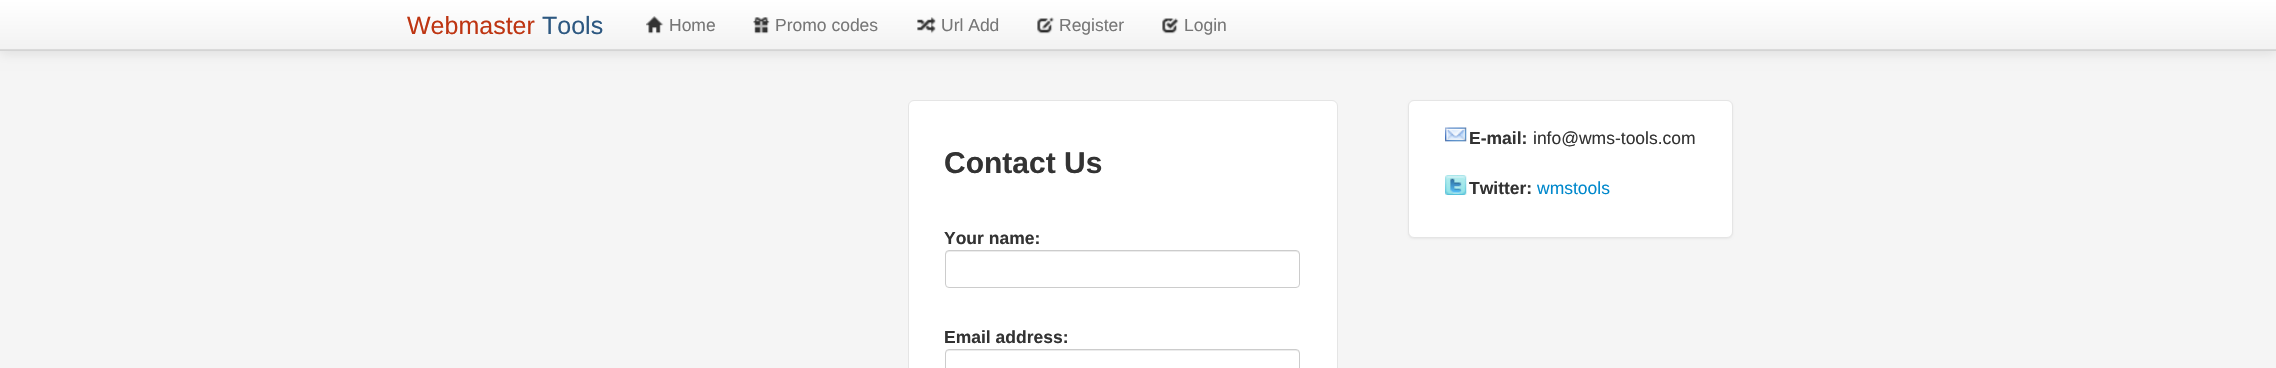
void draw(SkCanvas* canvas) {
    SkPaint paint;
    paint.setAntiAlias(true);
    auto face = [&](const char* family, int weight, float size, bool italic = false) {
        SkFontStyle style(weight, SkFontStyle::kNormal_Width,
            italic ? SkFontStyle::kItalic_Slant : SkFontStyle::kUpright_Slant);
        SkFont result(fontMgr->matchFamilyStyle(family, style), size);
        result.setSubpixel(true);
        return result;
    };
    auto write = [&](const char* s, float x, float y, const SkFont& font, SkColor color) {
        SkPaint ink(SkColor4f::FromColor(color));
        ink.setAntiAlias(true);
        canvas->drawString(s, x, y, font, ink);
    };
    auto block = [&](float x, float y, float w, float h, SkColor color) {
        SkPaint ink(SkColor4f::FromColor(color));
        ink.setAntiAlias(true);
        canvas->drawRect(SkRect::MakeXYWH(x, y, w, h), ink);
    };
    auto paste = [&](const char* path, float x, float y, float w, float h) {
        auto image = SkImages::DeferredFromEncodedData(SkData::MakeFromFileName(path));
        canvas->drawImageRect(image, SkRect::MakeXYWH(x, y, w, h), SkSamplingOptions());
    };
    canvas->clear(SkColorSetRGB(245, 245, 245));
    paint.setColor(SkColorSetARGB(26, 0, 0, 0));
    paint.setMaskFilter(SkMaskFilter::MakeBlur(kNormal_SkBlurStyle, 6));
    canvas->drawRect(SkRect::MakeXYWH(0, 1, 2276, 52), paint);
    paint.setMaskFilter(nullptr);
    {
        const SkColor colors[] = {SK_ColorWHITE, SkColorSetRGB(242, 242, 242)};
        const float stops[] = {0, 1};
        const SkPoint ends[] = {{1138, 0}, {1138, 50}};
        paint.setShader(SkGradientShader::MakeLinear(ends, colors, stops, 2, SkTileMode::kClamp));
        paint.setAlpha(255);
    }
    canvas->drawRect(SkRect::MakeXYWH(0, 0, 2276, 49), paint);
    block(0, 49, 2276, 1, SkColorSetRGB(218, 218, 218));
    block(0, 50, 2276, 1, SkColorSetRGB(212, 212, 212));
    auto kFont1 = face("Liberation Sans", 400, 25);
    write("Webmaster", 407, 34, kFont1, SkColorSetRGB(190, 53, 18));
    write("Tools", 542, 34, kFont1, SkColorSetRGB(45, 88, 129));
    paste("pic1.png", 646, 16, 18, 18);
    auto kFont2 = face("Liberation Sans", 400, 17.5f);
    write("Home", 669, 31, kFont2, SkColorSetRGB(119, 119, 119));
    paste("pic2.png", 753, 17, 17, 17);
    write("Promo codes", 775, 31, kFont2, SkColorSetRGB(119, 119, 119));
    paste("pic3.png", 917, 17, 19, 17);
    write("Url Add", 941, 31, kFont2, SkColorSetRGB(119, 119, 119));
    paste("pic4.png", 1037, 17, 18, 17);
    write("Register", 1059, 31, kFont2, SkColorSetRGB(119, 119, 119));
    paste("pic5.png", 1162, 18, 17, 16);
    write("Login", 1184, 31, kFont2, SkColorSetRGB(119, 119, 119));
    paint.setShader(nullptr);
    paint.setColor(SK_ColorWHITE);
    canvas->drawRoundRect(SkRect::MakeXYWH(908.5f, 100.5f, 429, 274), 5.5f, 5.5f, paint);
    paint.setStyle(SkPaint::kStroke_Style);
    paint.setStrokeWidth(1);
    paint.setColor(SkColorSetRGB(229, 229, 229));
    canvas->drawRoundRect(SkRect::MakeXYWH(908.5f, 100.5f, 429, 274), 5.5f, 5.5f, paint);
    auto kFont3 = face("Liberation Sans", 700, 30);
    write("Contact Us", 944, 173, kFont3, SkColorSetRGB(51, 51, 51));
    auto kFont4 = face("Liberation Sans", 700, 17.5f);
    write("Your name:", 944, 244, kFont4, SkColorSetRGB(51, 51, 51));
    paint.setStyle(SkPaint::kFill_Style);
    paint.setColor(SkColorSetRGB(236, 236, 236));
    canvas->drawPath(SkPathBuilder().moveTo(949, 252).lineTo(1296, 252).cubicTo(1298, 252, 1299, 254, 1299, 255).lineTo(1299, 252).lineTo(1297, 251).lineTo(948, 251).cubicTo(946, 251, 946, 253, 946, 255).cubicTo(946, 254, 947, 252, 949, 252).close().detach(), paint);
    paint.setStyle(SkPaint::kStroke_Style);
    paint.setColor(SkColorSetRGB(204, 204, 204));
    canvas->drawRoundRect(SkRect::MakeXYWH(945.5f, 250.5f, 354, 37), 3.5f, 3.5f, paint);
    write("Email address:", 944, 343, kFont4, SkColorSetRGB(51, 51, 51));
    paint.setStyle(SkPaint::kFill_Style);
    paint.setColor(SkColorSetRGB(236, 236, 236));
    canvas->drawPath(SkPathBuilder().moveTo(949, 351).lineTo(1296, 351).cubicTo(1298, 351, 1299, 352, 1299, 354).lineTo(1299, 351).lineTo(1297, 350).lineTo(948, 350).cubicTo(946, 350, 946, 352, 946, 354).cubicTo(946, 352, 947, 351, 949, 351).close().detach(), paint);
    paint.setStyle(SkPaint::kStroke_Style);
    paint.setColor(SkColorSetRGB(204, 204, 204));
    canvas->drawRoundRect(SkRect::MakeXYWH(945.5f, 349.5f, 354, 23), 3.5f, 3.5f, paint);
    paint.setStyle(SkPaint::kFill_Style);
    paint.setColor(SkColorSetARGB(13, 0, 0, 0));
    paint.setMaskFilter(SkMaskFilter::MakeBlur(kNormal_SkBlurStyle, 1));
    canvas->drawRoundRect(SkRect::MakeXYWH(1408, 101, 325, 138), 6, 6, paint);
    paint.setMaskFilter(nullptr);
    paint.setColor(SK_ColorWHITE);
    canvas->drawRoundRect(SkRect::MakeXYWH(1408.5f, 100.5f, 324, 137), 5.5f, 5.5f, paint);
    paint.setStyle(SkPaint::kStroke_Style);
    paint.setColor(SkColorSetRGB(229, 229, 229));
    canvas->drawRoundRect(SkRect::MakeXYWH(1408.5f, 100.5f, 324, 137), 5.5f, 5.5f, paint);
    paste("pic6.png", 1445, 127, 22, 15);
    write("E-mail:", 1469, 144, kFont4, SkColorSetRGB(51, 51, 51));
    write("info@wms-tools.com", 1533, 144, kFont2, SkColorSetRGB(51, 51, 51));
    paste("pic7.png", 1445, 175, 22, 20);
    write("Twitter:", 1469, 194, kFont4, SkColorSetRGB(51, 51, 51));
    write("wmstools", 1537, 194, kFont2, SkColorSetRGB(0, 136, 204));
}
